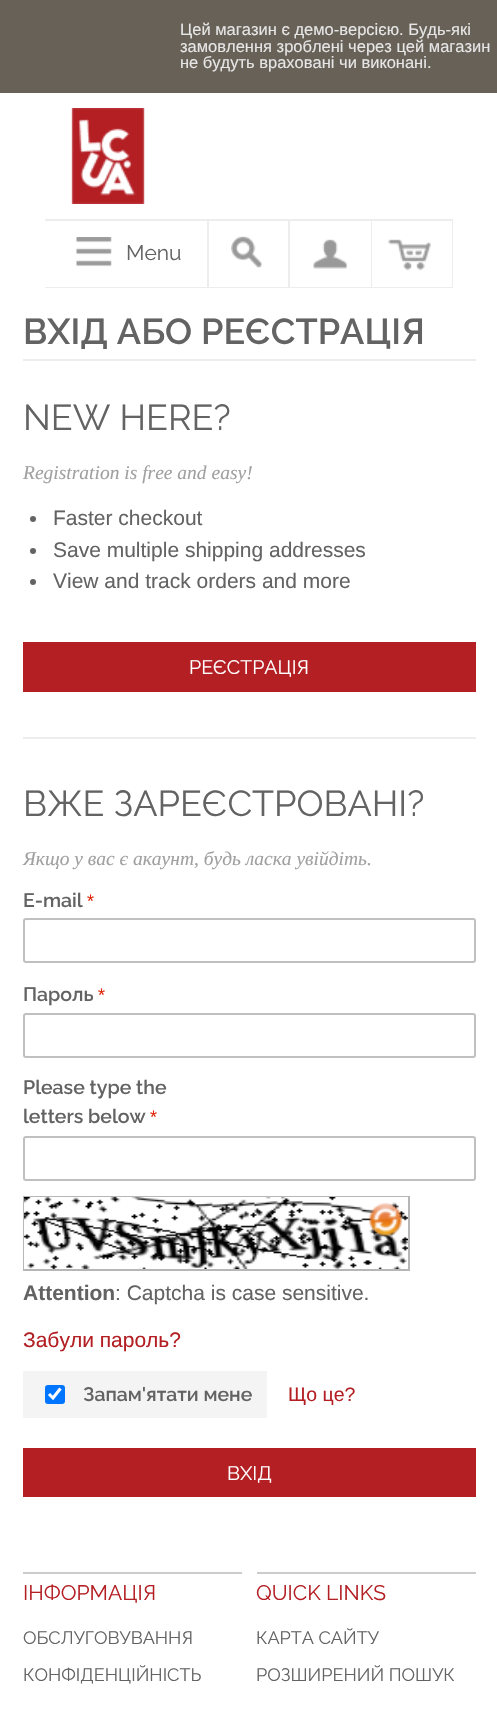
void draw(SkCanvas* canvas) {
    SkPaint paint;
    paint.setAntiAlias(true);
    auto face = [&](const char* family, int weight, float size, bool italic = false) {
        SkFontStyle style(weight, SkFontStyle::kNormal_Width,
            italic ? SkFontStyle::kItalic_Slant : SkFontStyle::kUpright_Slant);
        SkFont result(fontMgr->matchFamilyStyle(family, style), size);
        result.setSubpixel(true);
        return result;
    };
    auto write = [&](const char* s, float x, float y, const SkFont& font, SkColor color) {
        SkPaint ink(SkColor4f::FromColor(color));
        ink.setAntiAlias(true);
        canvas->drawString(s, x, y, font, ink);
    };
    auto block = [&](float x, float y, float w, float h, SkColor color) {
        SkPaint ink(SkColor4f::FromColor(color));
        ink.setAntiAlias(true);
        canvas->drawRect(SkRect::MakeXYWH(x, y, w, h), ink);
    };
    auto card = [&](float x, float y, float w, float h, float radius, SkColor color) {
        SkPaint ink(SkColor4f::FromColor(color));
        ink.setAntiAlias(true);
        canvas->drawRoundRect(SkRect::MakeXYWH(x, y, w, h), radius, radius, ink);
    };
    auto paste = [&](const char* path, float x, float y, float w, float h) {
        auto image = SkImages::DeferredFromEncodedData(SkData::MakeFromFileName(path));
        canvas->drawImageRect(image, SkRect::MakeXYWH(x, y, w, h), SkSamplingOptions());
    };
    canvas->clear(SkColorSetRGB(103, 97, 87));
    auto kFont1 = face("Liberation Sans", 400, 16.5f);
    write("Цей магазин є демо-версією. Будь-які", 180, 35, kFont1, SkColorSetRGB(230, 230, 230));
    write("замовлення зроблені через цей магазин", 180, 52, kFont1, SkColorSetRGB(230, 230, 230));
    write("не будуть враховані чи виконані.", 180, 68, kFont1, SkColorSetRGB(230, 230, 230));
    block(0, 93, 497, 1640, SK_ColorWHITE);
    paste("pic1.png", 71, 108, 74, 96);
    block(45, 219, 408, 2, SkColorSetRGB(237, 237, 237));
    block(45, 287, 408, 1, SkColorSetRGB(237, 237, 237));
    block(207, 221, 2, 66, SkColorSetRGB(237, 237, 237));
    paste("pic2.png", 76, 237, 36, 30);
    auto kFont2 = face("Raleway", 400, 21);
    write("Menu", 126, 260, kFont2, SkColorSetRGB(99, 99, 99));
    block(288, 221, 2, 66, SkColorSetRGB(237, 237, 237));
    paste("pic3.png", 231, 236, 32, 32);
    block(371, 221, 1, 66, SkColorSetRGB(237, 237, 237));
    paste("pic4.png", 313, 239, 35, 30);
    block(452, 221, 1, 66, SkColorSetRGB(237, 237, 237));
    paste("pic5.png", 388, 239, 43, 32);
    block(23, 359, 453, 2, SkColorSetRGB(237, 237, 237));
    auto kFont3 = face("Raleway", 600, 36);
    write("ВХІД АБО РЕЄСТРАЦІЯ", 23, 344, kFont3, SkColorSetRGB(99, 99, 99));
    auto kFont4 = face("Raleway", 400, 36);
    write("NEW HERE?", 23, 430, kFont4, SkColorSetRGB(99, 99, 99));
    auto kFont5 = face("Liberation Serif", 400, 19.5f, true);
    write("Registration is free and easy!", 23, 479, kFont5, SkColorSetRGB(160, 160, 160));
    paint.setColor(SkColorSetRGB(99, 99, 99));
    canvas->drawCircle(33, 519, 3, paint);
    auto kFont6 = face("Liberation Sans", 400, 21);
    write("Faster checkout", 53, 525, kFont6, SkColorSetRGB(99, 99, 99));
    canvas->drawCircle(33, 551, 3, paint);
    write("Save multiple shipping addresses", 53, 557, kFont6, SkColorSetRGB(99, 99, 99));
    canvas->drawCircle(33, 582, 3, paint);
    write("View and track orders and more", 53, 588, kFont6, SkColorSetRGB(99, 99, 99));
    block(23, 642, 453, 50, SkColorSetRGB(180, 31, 36));
    auto kFont7 = face("Raleway", 400, 19.5f);
    write("РЕЄСТРАЦІЯ", 189, 674, kFont7, SK_ColorWHITE);
    block(23, 737, 453, 2, SkColorSetRGB(237, 237, 237));
    write("ВЖЕ ЗАРЕЄСТРОВАНІ?", 23, 816, kFont4, SkColorSetRGB(99, 99, 99));
    write("Якщо у вас є акаунт, будь ласка увійдіть.", 23, 865, kFont5, SkColorSetRGB(160, 160, 160));
    auto kFont8 = face("Raleway", 600, 19.5f);
    write("E-mail", 23, 907, kFont8, SkColorSetRGB(99, 99, 99));
    auto kFont9 = face("Liberation Sans", 400, 18);
    write("*", 87, 907, kFont9, SkColorSetRGB(223, 40, 10));
    paint.setStyle(SkPaint::kStroke_Style);
    paint.setStrokeWidth(2);
    paint.setColor(SkColorSetRGB(192, 192, 192));
    canvas->drawRoundRect(SkRect::MakeXYWH(24, 919, 451, 43), 2, 2, paint);
    write("Пароль", 23, 1001, kFont8, SkColorSetRGB(99, 99, 99));
    write("*", 98, 1001, kFont9, SkColorSetRGB(223, 40, 10));
    canvas->drawRoundRect(SkRect::MakeXYWH(24, 1014, 451, 43), 2, 2, paint);
    write("Please type the", 23, 1094, kFont8, SkColorSetRGB(99, 99, 99));
    write("letters below", 23, 1123, kFont8, SkColorSetRGB(99, 99, 99));
    write("*", 150, 1123, kFont9, SkColorSetRGB(223, 40, 10));
    canvas->drawRoundRect(SkRect::MakeXYWH(24, 1137, 451, 43), 2, 2, paint);
    paint.setColor(SkColorSetRGB(182, 182, 182));
    canvas->drawRect(SkRect::MakeXYWH(24, 1197, 385, 73), paint);
    paste("pic6.png", 24, 1197, 384, 72);
    paste("pic7.png", 368, 1202, 35, 35);
    auto kFont10 = face("Liberation Sans", 700, 21);
    write("Attention", 23, 1300, kFont10, SkColorSetRGB(99, 99, 99));
    write(": Captcha is case sensitive.", 115, 1300, kFont6, SkColorSetRGB(99, 99, 99));
    write("Забули пароль?", 23, 1347, kFont6, SkColorSetRGB(180, 31, 36));
    block(23, 1371, 244, 47, SkColorSetRGB(244, 244, 244));
    card(45, 1385, 20, 19, 3, SkColorSetRGB(0, 117, 255));
    paint.setStrokeWidth(3.1f);
    paint.setColor(SK_ColorWHITE);
    canvas->drawPath(SkPathBuilder().moveTo(49, 1394).lineTo(53, 1398).lineTo(60.5f, 1388.5f).detach(), paint);
    write("Запам'ятати мене", 83, 1401, kFont8, SkColorSetRGB(99, 99, 99));
    auto kFont11 = face("Liberation Sans", 400, 19.5f);
    write("Що це?", 288, 1401, kFont11, SkColorSetRGB(180, 31, 36));
    block(23, 1448, 453, 49, SkColorSetRGB(180, 31, 36));
    write("ВХІД", 227, 1480, kFont7, SK_ColorWHITE);
    block(23, 1572, 219, 2, SkColorSetRGB(204, 204, 204));
    write("ІНФОРМАЦІЯ", 23, 1600, kFont2, SkColorSetRGB(180, 31, 36));
    auto kFont12 = face("Raleway", 400, 18);
    write("ОБСЛУГОВУВАННЯ", 23, 1644, kFont12, SkColorSetRGB(99, 99, 99));
    write("КОНФІДЕНЦІЙНІСТЬ", 23, 1681, kFont12, SkColorSetRGB(99, 99, 99));
    block(257, 1572, 219, 2, SkColorSetRGB(204, 204, 204));
    write("QUICK LINKS", 256, 1600, kFont2, SkColorSetRGB(180, 31, 36));
    write("КАРТА САЙТУ", 256, 1644, kFont12, SkColorSetRGB(99, 99, 99));
    write("РОЗШИРЕНИЙ ПОШУК", 256, 1681, kFont12, SkColorSetRGB(99, 99, 99));
}
